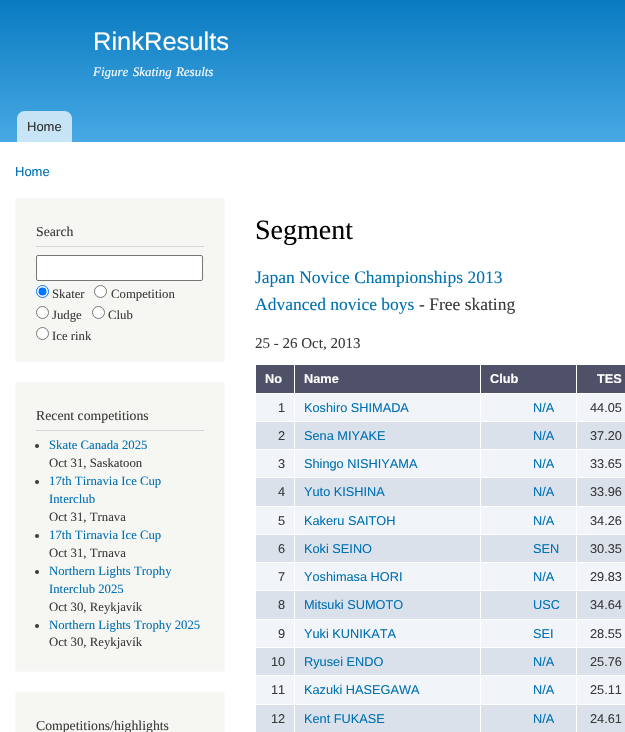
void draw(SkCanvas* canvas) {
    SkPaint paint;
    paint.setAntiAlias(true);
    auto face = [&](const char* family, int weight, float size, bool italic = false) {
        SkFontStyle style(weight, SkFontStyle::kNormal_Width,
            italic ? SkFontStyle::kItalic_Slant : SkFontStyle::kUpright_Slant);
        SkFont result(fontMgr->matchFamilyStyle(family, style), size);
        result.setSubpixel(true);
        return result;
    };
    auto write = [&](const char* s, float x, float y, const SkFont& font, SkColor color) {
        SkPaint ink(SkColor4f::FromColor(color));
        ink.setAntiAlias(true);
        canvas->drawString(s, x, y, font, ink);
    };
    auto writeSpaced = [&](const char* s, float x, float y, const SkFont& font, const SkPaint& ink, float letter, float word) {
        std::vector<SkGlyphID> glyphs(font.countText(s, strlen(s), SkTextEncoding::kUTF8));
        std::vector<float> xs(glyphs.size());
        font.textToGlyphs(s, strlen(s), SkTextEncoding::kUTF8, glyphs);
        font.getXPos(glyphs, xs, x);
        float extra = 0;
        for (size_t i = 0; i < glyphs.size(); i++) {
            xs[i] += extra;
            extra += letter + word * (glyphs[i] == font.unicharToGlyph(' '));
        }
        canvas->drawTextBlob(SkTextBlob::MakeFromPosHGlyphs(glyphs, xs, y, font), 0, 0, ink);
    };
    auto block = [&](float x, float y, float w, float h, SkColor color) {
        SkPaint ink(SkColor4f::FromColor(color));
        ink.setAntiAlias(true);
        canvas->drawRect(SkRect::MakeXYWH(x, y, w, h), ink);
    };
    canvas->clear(SK_ColorWHITE);
    {
        const SkColor colors[] = {SkColorSetRGB(7, 121, 191), SkColorSetRGB(72, 169, 228)};
        const float stops[] = {0, 1};
        const SkPoint ends[] = {{480, -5}, {480, 142}};
        paint.setShader(SkGradientShader::MakeLinear(ends, colors, stops, 2, SkTileMode::kClamp));
        paint.setAlpha(255);
    }
    canvas->drawRect(SkRect::MakeXYWH(0, 0, 625, 142), paint);
    auto kFont1 = face("Liberation Sans", 400, 25.5f);
    write("RinkResults", 93, 50, kFont1, SkColorSetRGB(255, 254, 255));
    auto kFont2 = face("Liberation Serif", 400, 13, true);
    paint.setShader(nullptr);
    paint.setColor(SkColorSetRGB(255, 254, 255));
    writeSpaced("Figure Skating Results", 93, 76, kFont2, paint, 0, 1);
    paint.setColor(SkColorSetARGB(179, 255, 255, 255));
    canvas->drawPath(SkPathBuilder().moveTo(25, 111).lineTo(64, 111).cubicTo(68.5f, 111, 72, 114.5f, 72, 119).lineTo(72, 142).lineTo(17, 142).lineTo(17, 119).cubicTo(17, 114.5f, 20.5f, 111, 25, 111).close().detach(), paint);
    auto kFont3 = face("Liberation Sans", 400, 13);
    write("Home", 27, 131, kFont3, SkColorSetRGB(51, 51, 51));
    write("Home", 15, 176, kFont3, SkColorSetRGB(0, 113, 179));
    paint.setColor(SkColorSetRGB(246, 246, 242));
    canvas->drawRect(SkRect::MakeXYWH(15.5f, 198.5f, 209, 163), paint);
    paint.setStyle(SkPaint::kStroke_Style);
    paint.setStrokeWidth(1);
    paint.setColor(SkColorSetRGB(249, 249, 249));
    canvas->drawRect(SkRect::MakeXYWH(15.5f, 198.5f, 209, 163), paint);
    block(36, 246, 168, 1, SkColorSetRGB(214, 214, 214));
    auto kFont4 = face("Liberation Serif", 400, 13.75f);
    write("Search", 36, 236, kFont4, SkColorSetRGB(59, 59, 59));
    paint.setStyle(SkPaint::kFill_Style);
    paint.setColor(SK_ColorWHITE);
    canvas->drawRoundRect(SkRect::MakeXYWH(36.5f, 255.5f, 166, 25), 1.5f, 1.5f, paint);
    paint.setStyle(SkPaint::kStroke_Style);
    paint.setColor(SkColorSetRGB(118, 118, 118));
    canvas->drawRoundRect(SkRect::MakeXYWH(36.5f, 255.5f, 166, 25), 1.5f, 1.5f, paint);
    paint.setStyle(SkPaint::kFill_Style);
    paint.setColor(SK_ColorWHITE);
    canvas->drawCircle(42.5f, 291.5f, 6, paint);
    paint.setStyle(SkPaint::kStroke_Style);
    paint.setColor(SkColorSetRGB(0, 117, 255));
    canvas->drawCircle(42.5f, 291.5f, 6, paint);
    paint.setStyle(SkPaint::kFill_Style);
    canvas->drawCircle(42.5f, 291.5f, 4, paint);
    auto kFont5 = face("Liberation Serif", 400, 12.75f);
    write("Skater", 52, 298, kFont5, SkColorSetRGB(59, 59, 59));
    paint.setColor(SK_ColorWHITE);
    canvas->drawCircle(100.5f, 291.5f, 6, paint);
    paint.setStyle(SkPaint::kStroke_Style);
    paint.setColor(SkColorSetRGB(118, 118, 118));
    canvas->drawCircle(100.5f, 291.5f, 6, paint);
    write("Competition", 111, 298, kFont5, SkColorSetRGB(59, 59, 59));
    paint.setStyle(SkPaint::kFill_Style);
    paint.setColor(SK_ColorWHITE);
    canvas->drawCircle(42.5f, 312.5f, 6, paint);
    paint.setStyle(SkPaint::kStroke_Style);
    paint.setColor(SkColorSetRGB(118, 118, 118));
    canvas->drawCircle(42.5f, 312.5f, 6, paint);
    write("Judge", 52, 319, kFont5, SkColorSetRGB(59, 59, 59));
    paint.setStyle(SkPaint::kFill_Style);
    paint.setColor(SK_ColorWHITE);
    canvas->drawCircle(98.5f, 312.5f, 6, paint);
    paint.setStyle(SkPaint::kStroke_Style);
    paint.setColor(SkColorSetRGB(118, 118, 118));
    canvas->drawCircle(98.5f, 312.5f, 6, paint);
    write("Club", 108, 319, kFont5, SkColorSetRGB(59, 59, 59));
    paint.setStyle(SkPaint::kFill_Style);
    paint.setColor(SK_ColorWHITE);
    canvas->drawCircle(42.5f, 333.5f, 6, paint);
    paint.setStyle(SkPaint::kStroke_Style);
    paint.setColor(SkColorSetRGB(118, 118, 118));
    canvas->drawCircle(42.5f, 333.5f, 6, paint);
    write("Ice rink", 52, 340, kFont5, SkColorSetRGB(59, 59, 59));
    paint.setStyle(SkPaint::kFill_Style);
    paint.setColor(SkColorSetRGB(246, 246, 242));
    canvas->drawRect(SkRect::MakeXYWH(15.5f, 382.5f, 209, 289), paint);
    paint.setStyle(SkPaint::kStroke_Style);
    paint.setColor(SkColorSetRGB(249, 249, 249));
    canvas->drawRect(SkRect::MakeXYWH(15.5f, 382.5f, 209, 289), paint);
    block(36, 430, 168, 1, SkColorSetRGB(214, 214, 214));
    write("Recent competitions", 36, 420, kFont4, SkColorSetRGB(59, 59, 59));
    paint.setStyle(SkPaint::kFill_Style);
    paint.setColor(SkColorSetRGB(59, 59, 59));
    canvas->drawCircle(37, 446, 2, paint);
    write("Skate Canada 2025", 49, 449, kFont5, SkColorSetRGB(0, 113, 179));
    write("Oct 31, Saskatoon", 49, 467, kFont5, SkColorSetRGB(59, 59, 59));
    canvas->drawCircle(37, 482, 2, paint);
    write("17th Tirnavia Ice Cup", 49, 485, kFont5, SkColorSetRGB(0, 113, 179));
    write("Interclub", 49, 503, kFont5, SkColorSetRGB(0, 113, 179));
    write("Oct 31, Trnava", 49, 521, kFont5, SkColorSetRGB(59, 59, 59));
    canvas->drawCircle(37, 536, 2, paint);
    write("17th Tirnavia Ice Cup", 49, 539, kFont5, SkColorSetRGB(0, 113, 179));
    write("Oct 31, Trnava", 49, 557, kFont5, SkColorSetRGB(59, 59, 59));
    canvas->drawCircle(37, 572, 2, paint);
    write("Northern Lights Trophy", 49, 575, kFont5, SkColorSetRGB(0, 113, 179));
    write("Interclub 2025", 49, 593, kFont5, SkColorSetRGB(0, 113, 179));
    write("Oct 30, Reykjavík", 49, 611, kFont5, SkColorSetRGB(59, 59, 59));
    canvas->drawCircle(37, 626, 2, paint);
    write("Northern Lights Trophy 2025", 49, 629, kFont5, SkColorSetRGB(0, 113, 179));
    write("Oct 30, Reykjavík", 49, 646, kFont5, SkColorSetRGB(59, 59, 59));
    paint.setColor(SkColorSetRGB(246, 246, 242));
    canvas->drawRect(SkRect::MakeXYWH(15.5f, 692.5f, 209, 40), paint);
    paint.setStyle(SkPaint::kStroke_Style);
    paint.setColor(SkColorSetRGB(249, 249, 249));
    canvas->drawRect(SkRect::MakeXYWH(15.5f, 692.5f, 209, 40), paint);
    write("Competitions/highlights", 36, 730, kFont4, SkColorSetRGB(59, 59, 59));
    auto kFont6 = face("Liberation Serif", 400, 28);
    write("Segment", 255, 239, kFont6, SK_ColorBLACK);
    auto kFont7 = face("Liberation Serif", 400, 17.5f);
    write("Japan Novice Championships 2013", 255, 283, kFont7, SkColorSetRGB(0, 113, 179));
    write("Advanced novice boys", 255, 310, kFont7, SkColorSetRGB(0, 113, 179));
    write("- Free skating", 419, 310, kFont7, SkColorSetRGB(59, 59, 59));
    auto kFont8 = face("Liberation Serif", 400, 15);
    write("25 - 26 Oct, 2013", 255, 348, kFont8, SkColorSetRGB(59, 59, 59));
    block(256, 365, 38, 28, SkColorSetRGB(79, 81, 104));
    auto kFont9 = face("Liberation Sans", 700, 12.75f);
    write("No", 265, 383, kFont9, SkColorSetRGB(255, 254, 255));
    block(295, 365, 185, 28, SkColorSetRGB(79, 81, 104));
    write("Name", 304, 383, kFont9, SkColorSetRGB(255, 254, 255));
    block(481, 365, 95, 28, SkColorSetRGB(79, 81, 104));
    write("Club", 490, 383, kFont9, SkColorSetRGB(255, 254, 255));
    block(577, 365, 48, 28, SkColorSetRGB(79, 81, 104));
    write("TES", 597, 383, kFont9, SkColorSetRGB(255, 254, 255));
    block(256, 394, 369, 27, SkColorSetRGB(241, 244, 248));
    auto kFont10 = face("Liberation Sans", 400, 12.75f);
    write("1", 278, 412, kFont10, SkColorSetRGB(59, 59, 59));
    write("Koshiro SHIMADA", 304, 412, kFont10, SkColorSetRGB(0, 113, 179));
    write("N/A", 533, 412, kFont10, SkColorSetRGB(0, 113, 179));
    write("44.05", 590, 412, kFont10, SkColorSetRGB(59, 59, 59));
    block(256, 422, 369, 27, SkColorSetRGB(218, 225, 235));
    write("2", 278, 440, kFont10, SkColorSetRGB(59, 59, 59));
    write("Sena MIYAKE", 304, 440, kFont10, SkColorSetRGB(0, 113, 179));
    write("N/A", 533, 440, kFont10, SkColorSetRGB(0, 113, 179));
    write("37.20", 590, 440, kFont10, SkColorSetRGB(59, 59, 59));
    block(256, 450, 369, 27, SkColorSetRGB(241, 244, 248));
    write("3", 278, 468, kFont10, SkColorSetRGB(59, 59, 59));
    write("Shingo NISHIYAMA", 304, 468, kFont10, SkColorSetRGB(0, 113, 179));
    write("N/A", 533, 468, kFont10, SkColorSetRGB(0, 113, 179));
    write("33.65", 590, 468, kFont10, SkColorSetRGB(59, 59, 59));
    block(256, 478, 369, 28, SkColorSetRGB(218, 225, 235));
    write("4", 278, 496, kFont10, SkColorSetRGB(59, 59, 59));
    write("Yuto KISHINA", 304, 496, kFont10, SkColorSetRGB(0, 113, 179));
    write("N/A", 533, 496, kFont10, SkColorSetRGB(0, 113, 179));
    write("33.96", 590, 496, kFont10, SkColorSetRGB(59, 59, 59));
    block(256, 507, 369, 27, SkColorSetRGB(241, 244, 248));
    write("5", 278, 525, kFont10, SkColorSetRGB(59, 59, 59));
    write("Kakeru SAITOH", 304, 525, kFont10, SkColorSetRGB(0, 113, 179));
    write("N/A", 533, 525, kFont10, SkColorSetRGB(0, 113, 179));
    write("34.26", 590, 525, kFont10, SkColorSetRGB(59, 59, 59));
    block(256, 535, 369, 27, SkColorSetRGB(218, 225, 235));
    write("6", 278, 553, kFont10, SkColorSetRGB(59, 59, 59));
    write("Koki SEINO", 304, 553, kFont10, SkColorSetRGB(0, 113, 179));
    write("SEN", 533, 553, kFont10, SkColorSetRGB(0, 113, 179));
    write("30.35", 590, 553, kFont10, SkColorSetRGB(59, 59, 59));
    block(256, 563, 369, 27, SkColorSetRGB(241, 244, 248));
    write("7", 278, 581, kFont10, SkColorSetRGB(59, 59, 59));
    write("Yoshimasa HORI", 304, 581, kFont10, SkColorSetRGB(0, 113, 179));
    write("N/A", 533, 581, kFont10, SkColorSetRGB(0, 113, 179));
    write("29.83", 590, 581, kFont10, SkColorSetRGB(59, 59, 59));
    block(256, 591, 369, 28, SkColorSetRGB(218, 225, 235));
    write("8", 278, 609, kFont10, SkColorSetRGB(59, 59, 59));
    write("Mitsuki SUMOTO", 304, 609, kFont10, SkColorSetRGB(0, 113, 179));
    write("USC", 533, 609, kFont10, SkColorSetRGB(0, 113, 179));
    write("34.64", 590, 609, kFont10, SkColorSetRGB(59, 59, 59));
    block(256, 620, 369, 27, SkColorSetRGB(241, 244, 248));
    write("9", 278, 638, kFont10, SkColorSetRGB(59, 59, 59));
    write("Yuki KUNIKATA", 304, 638, kFont10, SkColorSetRGB(0, 113, 179));
    write("SEI", 533, 638, kFont10, SkColorSetRGB(0, 113, 179));
    write("28.55", 590, 638, kFont10, SkColorSetRGB(59, 59, 59));
    block(256, 648, 369, 27, SkColorSetRGB(218, 225, 235));
    write("10", 271, 666, kFont10, SkColorSetRGB(59, 59, 59));
    write("Ryusei ENDO", 304, 666, kFont10, SkColorSetRGB(0, 113, 179));
    write("N/A", 533, 666, kFont10, SkColorSetRGB(0, 113, 179));
    write("25.76", 590, 666, kFont10, SkColorSetRGB(59, 59, 59));
    block(256, 676, 369, 28, SkColorSetRGB(241, 244, 248));
    write("11", 271, 694, kFont10, SkColorSetRGB(59, 59, 59));
    write("Kazuki HASEGAWA", 304, 694, kFont10, SkColorSetRGB(0, 113, 179));
    write("N/A", 533, 694, kFont10, SkColorSetRGB(0, 113, 179));
    write("25.11", 590, 694, kFont10, SkColorSetRGB(59, 59, 59));
    block(256, 705, 369, 27, SkColorSetRGB(218, 225, 235));
    write("12", 271, 723, kFont10, SkColorSetRGB(59, 59, 59));
    block(294, 393, 1, 339, SK_ColorWHITE);
    write("Kent FUKASE", 304, 723, kFont10, SkColorSetRGB(0, 113, 179));
    block(480, 393, 1, 339, SK_ColorWHITE);
    write("N/A", 533, 723, kFont10, SkColorSetRGB(0, 113, 179));
    block(576, 393, 1, 339, SK_ColorWHITE);
    write("24.61", 590, 723, kFont10, SkColorSetRGB(59, 59, 59));
}
